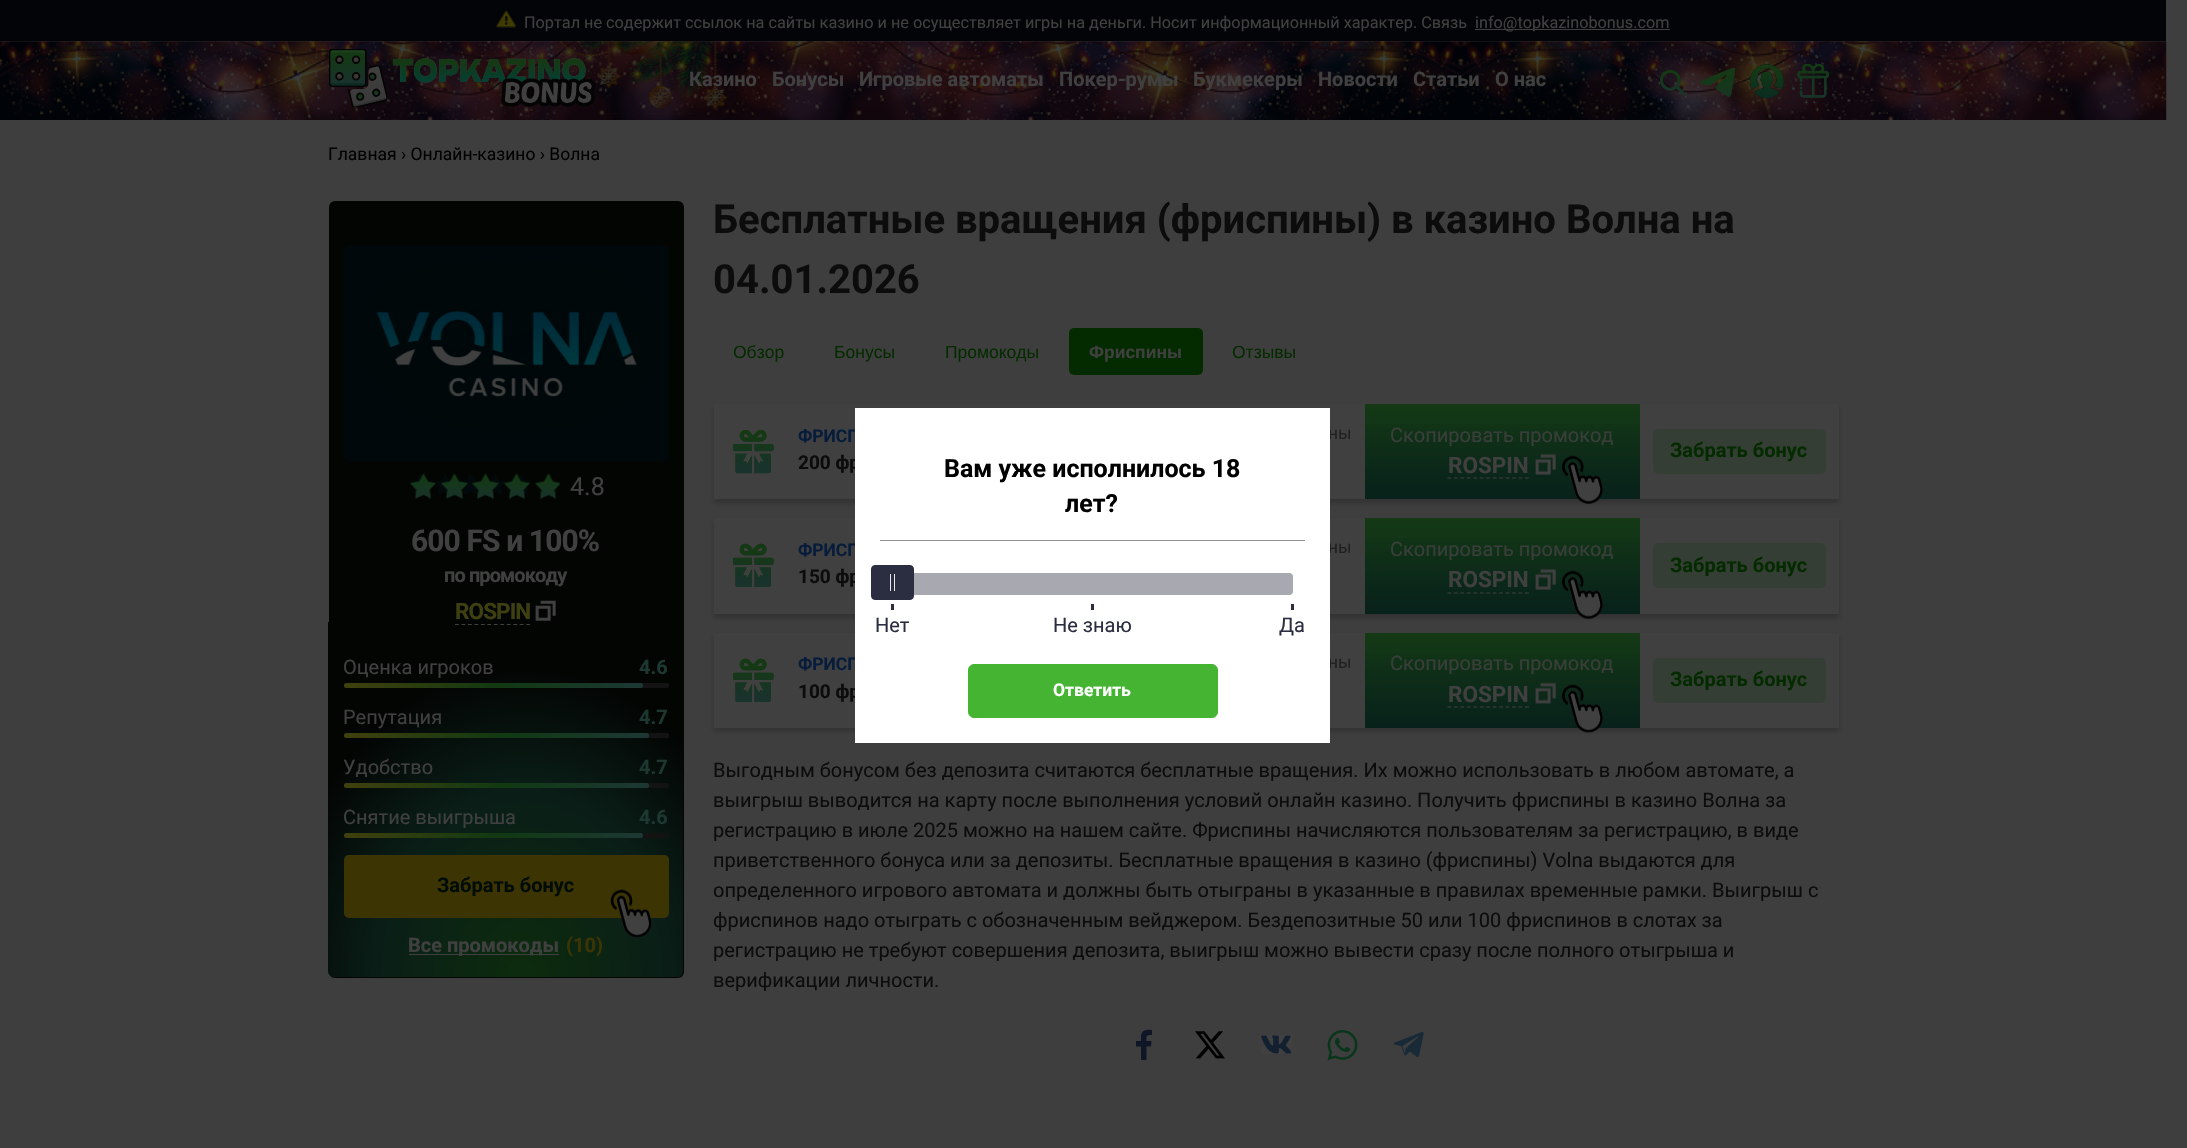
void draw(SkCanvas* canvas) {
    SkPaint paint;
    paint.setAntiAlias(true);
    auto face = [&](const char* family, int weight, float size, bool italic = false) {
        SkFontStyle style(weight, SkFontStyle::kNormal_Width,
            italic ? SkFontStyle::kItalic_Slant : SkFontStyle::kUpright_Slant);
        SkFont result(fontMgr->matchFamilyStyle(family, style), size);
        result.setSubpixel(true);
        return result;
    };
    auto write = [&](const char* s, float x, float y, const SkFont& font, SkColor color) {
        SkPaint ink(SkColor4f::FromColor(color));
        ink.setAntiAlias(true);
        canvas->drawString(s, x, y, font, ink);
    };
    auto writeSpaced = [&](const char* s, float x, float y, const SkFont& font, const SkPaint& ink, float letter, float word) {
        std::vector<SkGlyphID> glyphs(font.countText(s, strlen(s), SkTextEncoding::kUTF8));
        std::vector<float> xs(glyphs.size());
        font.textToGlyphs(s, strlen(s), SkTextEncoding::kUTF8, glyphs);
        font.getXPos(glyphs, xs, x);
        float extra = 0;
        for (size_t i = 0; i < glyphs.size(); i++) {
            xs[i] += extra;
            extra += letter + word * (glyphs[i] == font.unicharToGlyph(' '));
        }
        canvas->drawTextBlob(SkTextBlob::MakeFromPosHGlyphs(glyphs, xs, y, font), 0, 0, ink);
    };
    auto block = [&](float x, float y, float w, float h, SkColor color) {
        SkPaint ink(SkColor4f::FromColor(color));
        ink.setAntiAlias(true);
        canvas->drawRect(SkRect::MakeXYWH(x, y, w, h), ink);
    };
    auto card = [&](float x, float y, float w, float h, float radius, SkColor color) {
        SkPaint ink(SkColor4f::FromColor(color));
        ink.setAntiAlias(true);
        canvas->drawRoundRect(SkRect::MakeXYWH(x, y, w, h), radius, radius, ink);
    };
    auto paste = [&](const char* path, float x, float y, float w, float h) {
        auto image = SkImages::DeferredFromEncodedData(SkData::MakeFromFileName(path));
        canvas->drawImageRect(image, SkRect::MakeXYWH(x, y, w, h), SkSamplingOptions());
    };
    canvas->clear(SkColorSetRGB(62, 62, 62));
    block(0, 0, 2166, 41, SkColorSetRGB(3, 4, 7));
    paste("pic1.png", 496, 10, 20, 18);
    auto kFont1 = face("Roboto", 400, 16.25f);
    write("Портал не содержит ссылок на сайты казино и не осуществляет игры на деньги. Носит информационный характер. Связь", 524, 28, kFont1, SkColorSetRGB(64, 64, 64));
    block(1475, 29, 195, 1, SkColorSetRGB(64, 64, 64));
    write("info@topkazinobonus.com", 1475, 28, kFont1, SkColorSetRGB(64, 64, 64));
    paste("pic2.png", 0, 41, 2167, 79);
    paste("pic3.png", 329, 49, 267, 59);
    paste("pic4.png", 558, 41, 170, 73);
    auto kFont2 = face("Roboto", 700, 20);
    write("Казино", 689, 86, kFont2, SkColorSetRGB(64, 64, 64));
    write("Бонусы", 772, 86, kFont2, SkColorSetRGB(64, 64, 64));
    write("Игровые автоматы", 859, 86, kFont2, SkColorSetRGB(64, 64, 64));
    write("Покер-румы", 1059, 86, kFont2, SkColorSetRGB(64, 64, 64));
    write("Букмекеры", 1193, 86, kFont2, SkColorSetRGB(64, 64, 64));
    write("Новости", 1318, 86, kFont2, SkColorSetRGB(64, 64, 64));
    write("Статьи", 1413, 86, kFont2, SkColorSetRGB(64, 64, 64));
    write("О нас", 1495, 86, kFont2, SkColorSetRGB(64, 64, 64));
    paste("pic5.png", 1660, 70, 25, 25);
    paste("pic6.png", 1700, 67, 36, 30);
    paste("pic7.png", 1750, 64, 34, 35);
    paste("pic8.png", 1797, 64, 32, 34);
    auto kFont3 = face("Roboto", 400, 17.5f);
    write("Главная › Онлайн-казино › Волна", 328, 160, kFont3, SK_ColorBLACK);
    card(329, 201, 355, 777, 6, SkColorSetRGB(3, 5, 3));
    paste("pic9.png", 343, 245, 326, 216);
    paste("pic11.png", 409, 474, 122, 20);
    paste("pic10.png", 410, 473, 150, 26);
    auto kFont4 = face("Roboto", 400, 25);
    write("4.8", 570, 495, kFont4, SkColorSetRGB(64, 64, 64));
    auto kFont5 = face("Roboto", 700, 30);
    paint.setColor(SkColorSetRGB(64, 64, 64));
    writeSpaced("600 FS и 100%", 411, 551, kFont5, paint, -0.9f, 0);
    writeSpaced("по промокоду", 444, 582, kFont2, paint, -0.9f, 0);
    auto kFont6 = face("Roboto", 700, 22.5f);
    paint.setColor(SkColorSetRGB(63, 64, 17));
    writeSpaced("ROSPIN", 455, 619, kFont6, paint, -0.9f, 0);
    {
        const SkColor colors[] = {SkColorSetRGB(13, 44, 14), SkColorSetRGB(10, 30, 23), SkColorSetRGB(3, 5, 3)};
        const float stops[] = {0, 0.59f, 1};
        SkMatrix m = SkMatrix::Translate(522, 977).preScale(247, 309);
        paint.setShader(SkGradientShader::MakeRadial({0, 0}, 1, colors, stops, 3, SkTileMode::kClamp, 0, &m));
        paint.setAlpha(255);
    }
    canvas->drawPath(SkPathBuilder().moveTo(683, 622).lineTo(683, 971).cubicTo(683, 975, 680, 977, 677, 977).lineTo(334, 977).cubicTo(331, 977, 328, 975, 328, 971).lineTo(328, 622).close().detach(), paint);
    paint.setStyle(SkPaint::kStroke_Style);
    paint.setStrokeWidth(1.2f);
    paint.setShader(nullptr);
    paint.setColor(SkColorSetRGB(64, 64, 64));
    paint.setPathEffect(SkDashPathEffect::Make({{3.75f, 2.73f}}, 0));
    canvas->drawPath(SkPathBuilder().moveTo(455, 624.5f).lineTo(530, 624.5f).detach(), paint);
    paint.setPathEffect(nullptr);
    paste("pic12.png", 535, 600, 21, 21);
    auto kFont7 = face("Roboto", 400, 20);
    write("Оценка игроков", 343, 674, kFont7, SkColorSetRGB(64, 64, 64));
    write("4.6", 639, 674, kFont2, SkColorSetRGB(28, 56, 49));
    card(344, 683, 325, 5, 2.5f, SkColorSetRGB(19, 19, 19));
    paint.setStyle(SkPaint::kFill_Style);
    {
        const SkColor colors[] = {SkColorSetRGB(64, 64, 13), SkColorSetRGB(17, 57, 18), SkColorSetRGB(29, 56, 52)};
        const float stops[] = {0, 0.52f, 1};
        const SkPoint ends[] = {{344, 685}, {643, 685}};
        paint.setShader(SkGradientShader::MakeLinear(ends, colors, stops, 3, SkTileMode::kClamp));
        paint.setAlpha(255);
    }
    canvas->drawRoundRect(SkRect::MakeXYWH(344, 683, 299, 5), 2.5f, 2.5f, paint);
    write("Репутация", 343, 724, kFont7, SkColorSetRGB(64, 64, 64));
    write("4.7", 639, 724, kFont2, SkColorSetRGB(28, 56, 49));
    card(344, 733, 325, 5, 2.5f, SkColorSetRGB(19, 19, 19));
    {
        const SkColor colors[] = {SkColorSetRGB(64, 64, 13), SkColorSetRGB(17, 57, 18), SkColorSetRGB(29, 56, 52)};
        const float stops[] = {0, 0.52f, 1};
        const SkPoint ends[] = {{344, 735}, {649, 735}};
        paint.setShader(SkGradientShader::MakeLinear(ends, colors, stops, 3, SkTileMode::kClamp));
        paint.setAlpha(255);
    }
    canvas->drawRoundRect(SkRect::MakeXYWH(344, 733, 305, 5), 2.5f, 2.5f, paint);
    write("Удобство", 343, 774, kFont7, SkColorSetRGB(64, 64, 64));
    write("4.7", 639, 774, kFont2, SkColorSetRGB(28, 56, 49));
    card(344, 783, 325, 5, 2.5f, SkColorSetRGB(19, 19, 19));
    {
        const SkColor colors[] = {SkColorSetRGB(64, 64, 13), SkColorSetRGB(17, 57, 18), SkColorSetRGB(29, 56, 52)};
        const float stops[] = {0, 0.52f, 1};
        const SkPoint ends[] = {{344, 785}, {649, 785}};
        paint.setShader(SkGradientShader::MakeLinear(ends, colors, stops, 3, SkTileMode::kClamp));
        paint.setAlpha(255);
    }
    canvas->drawRoundRect(SkRect::MakeXYWH(344, 783, 305, 5), 2.5f, 2.5f, paint);
    write("Снятие выигрыша", 343, 824, kFont7, SkColorSetRGB(64, 64, 64));
    write("4.6", 639, 824, kFont2, SkColorSetRGB(28, 56, 49));
    card(344, 833, 325, 5, 2.5f, SkColorSetRGB(19, 19, 19));
    {
        const SkColor colors[] = {SkColorSetRGB(64, 64, 13), SkColorSetRGB(17, 57, 18), SkColorSetRGB(29, 56, 52)};
        const float stops[] = {0, 0.52f, 1};
        const SkPoint ends[] = {{344, 835}, {643, 835}};
        paint.setShader(SkGradientShader::MakeLinear(ends, colors, stops, 3, SkTileMode::kClamp));
        paint.setAlpha(255);
    }
    canvas->drawRoundRect(SkRect::MakeXYWH(344, 833, 299, 5), 2.5f, 2.5f, paint);
    card(344, 855, 325, 63, 5, SkColorSetRGB(61, 52, 4));
    write("Забрать бонус", 437, 892, kFont2, SkColorSetRGB(2, 12, 9));
    paste("pic13.png", 610, 889, 42, 49);
    block(409, 954, 150, 1, SkColorSetRGB(64, 64, 64));
    write("Все промокоды", 408, 952, kFont2, SkColorSetRGB(64, 64, 64));
    write("(10)", 566, 952, kFont2, SkColorSetRGB(61, 52, 4));
    auto kFont8 = face("Roboto", 700, 40);
    write("Бесплатные вращения (фриспины) в казино Волна на", 713, 233, kFont8, SkColorSetRGB(12, 12, 12));
    write("04.01.2026", 713, 293, kFont8, SkColorSetRGB(12, 12, 12));
    auto kFont9 = face("Liberation Sans", 400, 17.5f);
    write("Обзор", 733, 358, kFont9, SkColorSetRGB(4, 43, 0));
    write("Бонусы", 834, 358, kFont9, SkColorSetRGB(4, 43, 0));
    write("Промокоды", 945, 358, kFont9, SkColorSetRGB(4, 43, 0));
    card(1069, 328, 134, 47, 5, SkColorSetRGB(4, 43, 0));
    auto kFont10 = face("Liberation Sans", 700, 17.5f);
    write("Фриспины", 1089, 358, kFont10, SkColorSetRGB(64, 64, 64));
    write("Отзывы", 1232, 358, kFont9, SkColorSetRGB(4, 43, 0));
    paint.setShader(nullptr);
    paint.setColor(SkColorSetARGB(51, 0, 0, 0));
    paint.setMaskFilter(SkMaskFilter::MakeBlur(kNormal_SkBlurStyle, 2.5f));
    canvas->drawRect(SkRect::MakeXYWH(714, 408, 1125, 95), paint);
    paint.setMaskFilter(nullptr);
    block(714, 404, 1125, 95, SkColorSetRGB(64, 64, 64));
    paste("pic14.png", 733, 430, 41, 44);
    auto kFont11 = face("Roboto", 700, 17.5f);
    write("ФРИСП", 798, 442, kFont11, SkColorSetRGB(6, 28, 58));
    auto kFont12 = face("Roboto", 700, 19);
    write("200 фр", 798, 469, kFont12, SkColorSetRGB(12, 12, 12));
    write("ны", 1328, 439, kFont3, SkColorSetRGB(32, 32, 32));
    {
        const SkColor colors[] = {SkColorSetRGB(10, 43, 34), SkColorSetRGB(20, 57, 20)};
        const float stops[] = {0, 1};
        const SkPoint ends[] = {{1503, 499}, {1503, 404}};
        paint.setShader(SkGradientShader::MakeLinear(ends, colors, stops, 2, SkTileMode::kClamp));
        paint.setAlpha(255);
    }
    canvas->drawRect(SkRect::MakeXYWH(1365, 404, 275, 95), paint);
    {
        const SkColor colors[] = {SkColorSetARGB(0, 0, 0, 0), SkColorSetARGB(54, 0, 0, 0)};
        const float stops[] = {0, 0.88f};
        const SkPoint ends[] = {{1503, 404}, {1503, 499}};
        paint.setShader(SkGradientShader::MakeLinear(ends, colors, stops, 2, SkTileMode::kClamp));
        paint.setAlpha(255);
    }
    canvas->drawRect(SkRect::MakeXYWH(1365, 424, 275, 75), paint);
    write("Скопировать промокод", 1390, 442, kFont7, SkColorSetRGB(57, 62, 58));
    write("ROSPIN", 1448, 473, kFont6, SkColorSetRGB(64, 64, 64));
    paint.setStyle(SkPaint::kStroke_Style);
    paint.setShader(nullptr);
    paint.setColor(SkColorSetRGB(64, 64, 64));
    paint.setPathEffect(SkDashPathEffect::Make({{3.75f, 2.71f}}, 0));
    canvas->drawPath(SkPathBuilder().moveTo(1447.5f, 478).lineTo(1529, 478).detach(), paint);
    paint.setPathEffect(nullptr);
    paste("pic15.png", 1535, 453, 21, 22);
    paste("pic16.png", 1562, 455, 41, 49);
    card(1653, 429, 173, 45, 5, SkColorSetRGB(53, 62, 52));
    write("Забрать бонус", 1670, 457, kFont2, SkColorSetRGB(4, 43, 0));
    paint.setStyle(SkPaint::kFill_Style);
    paint.setColor(SkColorSetARGB(51, 0, 0, 0));
    paint.setMaskFilter(SkMaskFilter::MakeBlur(kNormal_SkBlurStyle, 2.5f));
    canvas->drawRect(SkRect::MakeXYWH(714, 521, 1125, 97), paint);
    paint.setMaskFilter(nullptr);
    block(714, 518, 1125, 96, SkColorSetRGB(64, 64, 64));
    paste("pic17.png", 733, 543, 41, 44);
    write("ФРИСП", 798, 556, kFont11, SkColorSetRGB(6, 28, 58));
    write("150 фр", 798, 583, kFont12, SkColorSetRGB(12, 12, 12));
    write("ны", 1328, 553, kFont3, SkColorSetRGB(32, 32, 32));
    {
        const SkColor colors[] = {SkColorSetRGB(10, 43, 34), SkColorSetRGB(20, 57, 20)};
        const float stops[] = {0, 1};
        const SkPoint ends[] = {{1503, 614}, {1503, 518}};
        paint.setShader(SkGradientShader::MakeLinear(ends, colors, stops, 2, SkTileMode::kClamp));
        paint.setAlpha(255);
    }
    canvas->drawRect(SkRect::MakeXYWH(1365, 518, 275, 96), paint);
    {
        const SkColor colors[] = {SkColorSetARGB(0, 0, 0, 0), SkColorSetARGB(54, 0, 0, 0)};
        const float stops[] = {0, 0.88f};
        const SkPoint ends[] = {{1503, 518}, {1503, 614}};
        paint.setShader(SkGradientShader::MakeLinear(ends, colors, stops, 2, SkTileMode::kClamp));
        paint.setAlpha(255);
    }
    canvas->drawRect(SkRect::MakeXYWH(1365, 538, 275, 76), paint);
    write("Скопировать промокод", 1390, 556, kFont7, SkColorSetRGB(57, 62, 58));
    write("ROSPIN", 1448, 587, kFont6, SkColorSetRGB(64, 64, 64));
    paint.setStyle(SkPaint::kStroke_Style);
    paint.setShader(nullptr);
    paint.setColor(SkColorSetRGB(64, 64, 64));
    paint.setPathEffect(SkDashPathEffect::Make({{3.75f, 2.71f}}, 0));
    canvas->drawPath(SkPathBuilder().moveTo(1447.5f, 593).lineTo(1529, 593).detach(), paint);
    paint.setPathEffect(nullptr);
    paste("pic18.png", 1535, 568, 21, 22);
    paste("pic19.png", 1562, 570, 41, 49);
    card(1653, 543, 173, 45, 5, SkColorSetRGB(53, 62, 52));
    write("Забрать бонус", 1670, 572, kFont2, SkColorSetRGB(4, 43, 0));
    paint.setStyle(SkPaint::kFill_Style);
    paint.setColor(SkColorSetARGB(51, 0, 0, 0));
    paint.setMaskFilter(SkMaskFilter::MakeBlur(kNormal_SkBlurStyle, 2.5f));
    canvas->drawRect(SkRect::MakeXYWH(714, 636, 1125, 95), paint);
    paint.setMaskFilter(nullptr);
    block(714, 633, 1125, 95, SkColorSetRGB(64, 64, 64));
    paste("pic17.png", 733, 658, 41, 44);
    write("ФРИСП", 798, 670, kFont11, SkColorSetRGB(6, 28, 58));
    write("100 фр", 798, 698, kFont12, SkColorSetRGB(12, 12, 12));
    write("ны", 1328, 668, kFont3, SkColorSetRGB(32, 32, 32));
    {
        const SkColor colors[] = {SkColorSetRGB(10, 43, 34), SkColorSetRGB(20, 57, 20)};
        const float stops[] = {0, 1};
        const SkPoint ends[] = {{1503, 728}, {1503, 633}};
        paint.setShader(SkGradientShader::MakeLinear(ends, colors, stops, 2, SkTileMode::kClamp));
        paint.setAlpha(255);
    }
    canvas->drawRect(SkRect::MakeXYWH(1365, 633, 275, 95), paint);
    {
        const SkColor colors[] = {SkColorSetARGB(0, 0, 0, 0), SkColorSetARGB(54, 0, 0, 0)};
        const float stops[] = {0, 0.88f};
        const SkPoint ends[] = {{1503, 633}, {1503, 728}};
        paint.setShader(SkGradientShader::MakeLinear(ends, colors, stops, 2, SkTileMode::kClamp));
        paint.setAlpha(255);
    }
    canvas->drawRect(SkRect::MakeXYWH(1365, 653, 275, 75), paint);
    write("Скопировать промокод", 1390, 670, kFont7, SkColorSetRGB(57, 62, 58));
    write("ROSPIN", 1448, 702, kFont6, SkColorSetRGB(64, 64, 64));
    paint.setStyle(SkPaint::kStroke_Style);
    paint.setShader(nullptr);
    paint.setColor(SkColorSetRGB(64, 64, 64));
    paint.setPathEffect(SkDashPathEffect::Make({{3.75f, 2.71f}}, 0));
    canvas->drawPath(SkPathBuilder().moveTo(1447.5f, 707).lineTo(1529, 707).detach(), paint);
    paint.setPathEffect(nullptr);
    paste("pic20.png", 1535, 682, 21, 22);
    paste("pic21.png", 1562, 684, 41, 49);
    card(1653, 658, 173, 45, 5, SkColorSetRGB(53, 62, 52));
    write("Забрать бонус", 1670, 686, kFont2, SkColorSetRGB(4, 43, 0));
    write("Выгодным бонусом без депозита считаются бесплатные вращения. Их можно использовать в любом автомате, а", 713, 777, kFont7, SkColorSetRGB(12, 12, 12));
    write("выигрыш выводится на карту после выполнения условий онлайн казино. Получить фриспины в казино Волна за", 713, 807, kFont7, SkColorSetRGB(12, 12, 12));
    write("регистрацию в июле 2025 можно на нашем сайте. Фриспины начисляются пользователям за регистрацию, в виде", 713, 837, kFont7, SkColorSetRGB(12, 12, 12));
    write("приветственного бонуса или за депозиты. Бесплатные вращения в казино (фриспины) Volna выдаются для", 713, 867, kFont7, SkColorSetRGB(12, 12, 12));
    write("определенного игрового автомата и должны быть отыграны в указанные в правилах временные рамки. Выигрыш с", 713, 897, kFont7, SkColorSetRGB(12, 12, 12));
    write("фриспинов надо отыграть с обозначенным вейджером. Бездепозитные 50 или 100 фриспинов в слотах за", 713, 927, kFont7, SkColorSetRGB(12, 12, 12));
    write("регистрацию не требуют совершения депозита, выигрыш можно вывести сразу после полного отыгрыша и", 713, 957, kFont7, SkColorSetRGB(12, 12, 12));
    write("верификации личности.", 713, 987, kFont7, SkColorSetRGB(12, 12, 12));
    paint.setStyle(SkPaint::kFill_Style);
    paint.setColor(SkColorSetRGB(15, 22, 38));
    canvas->drawPath(SkPathBuilder(SkPathFillType::kEvenOdd).moveTo(1146.5f, 1060).lineTo(1146.5f, 1046.5f).lineTo(1151, 1046.5f).lineTo(1151.5f, 1041).lineTo(1146.5f, 1041).cubicTo(1146.5f, 1035.5f, 1146, 1035, 1152, 1035).lineTo(1152, 1030).cubicTo(1147.5f, 1029.5f, 1142, 1029.5f, 1141, 1035.5f).lineTo(1141, 1041).lineTo(1136, 1041).lineTo(1136, 1046.5f).lineTo(1141, 1046.5f).lineTo(1141, 1060).close().detach(), paint);
    paste("pic22.png", 1195, 1031, 30, 28);
    paste("pic23.png", 1261, 1035, 31, 19);
    paste("pic24.png", 1327, 1030, 31, 31);
    paste("pic25.png", 1393, 1031, 31, 26);
    block(855, 408, 475, 335, SK_ColorWHITE);
    block(880, 540, 425, 1, SkColorSetRGB(146, 146, 147));
    auto kFont13 = face("Roboto", 700, 25);
    write("Вам уже исполнилось 18", 944, 477, kFont13, SK_ColorBLACK);
    write("лет?", 1065, 512, kFont13, SK_ColorBLACK);
    card(893, 573, 400, 22, 5, SkColorSetRGB(250, 250, 250));
    card(893, 573, 400, 22, 4, SkColorSetARGB(102, 43, 46, 65));
    paint.setColor(SkColorSetRGB(43, 46, 65));
    canvas->drawRoundRect(SkRect::MakeXYWH(871.5f, 565.5f, 42, 34), 3.5f, 3.5f, paint);
    paint.setStyle(SkPaint::kStroke_Style);
    paint.setStrokeWidth(1);
    canvas->drawRoundRect(SkRect::MakeXYWH(871.5f, 565.5f, 42, 34), 3.5f, 3.5f, paint);
    block(890, 574, 1, 17, SkColorSetRGB(232, 231, 230));
    block(894, 574, 1, 17, SkColorSetRGB(232, 231, 230));
    block(891, 604, 3, 6, SkColorSetRGB(43, 46, 65));
    block(1091, 604, 3, 6, SkColorSetRGB(43, 46, 65));
    block(1291, 604, 3, 6, SkColorSetRGB(43, 46, 65));
    write("Нет", 875, 632, kFont7, SkColorSetRGB(43, 46, 65));
    write("Не знаю", 1053, 632, kFont7, SkColorSetRGB(43, 46, 65));
    write("Да", 1279, 632, kFont7, SkColorSetRGB(43, 46, 65));
    paint.setStyle(SkPaint::kFill_Style);
    paint.setColor(SkColorSetRGB(69, 180, 51));
    canvas->drawRoundRect(SkRect::MakeXYWH(968.5f, 664.5f, 249, 53), 5.5f, 5.5f, paint);
    paint.setStyle(SkPaint::kStroke_Style);
    canvas->drawRoundRect(SkRect::MakeXYWH(968.5f, 664.5f, 249, 53), 5.5f, 5.5f, paint);
    write("Ответить", 1053, 696, kFont11, SK_ColorWHITE);
}
